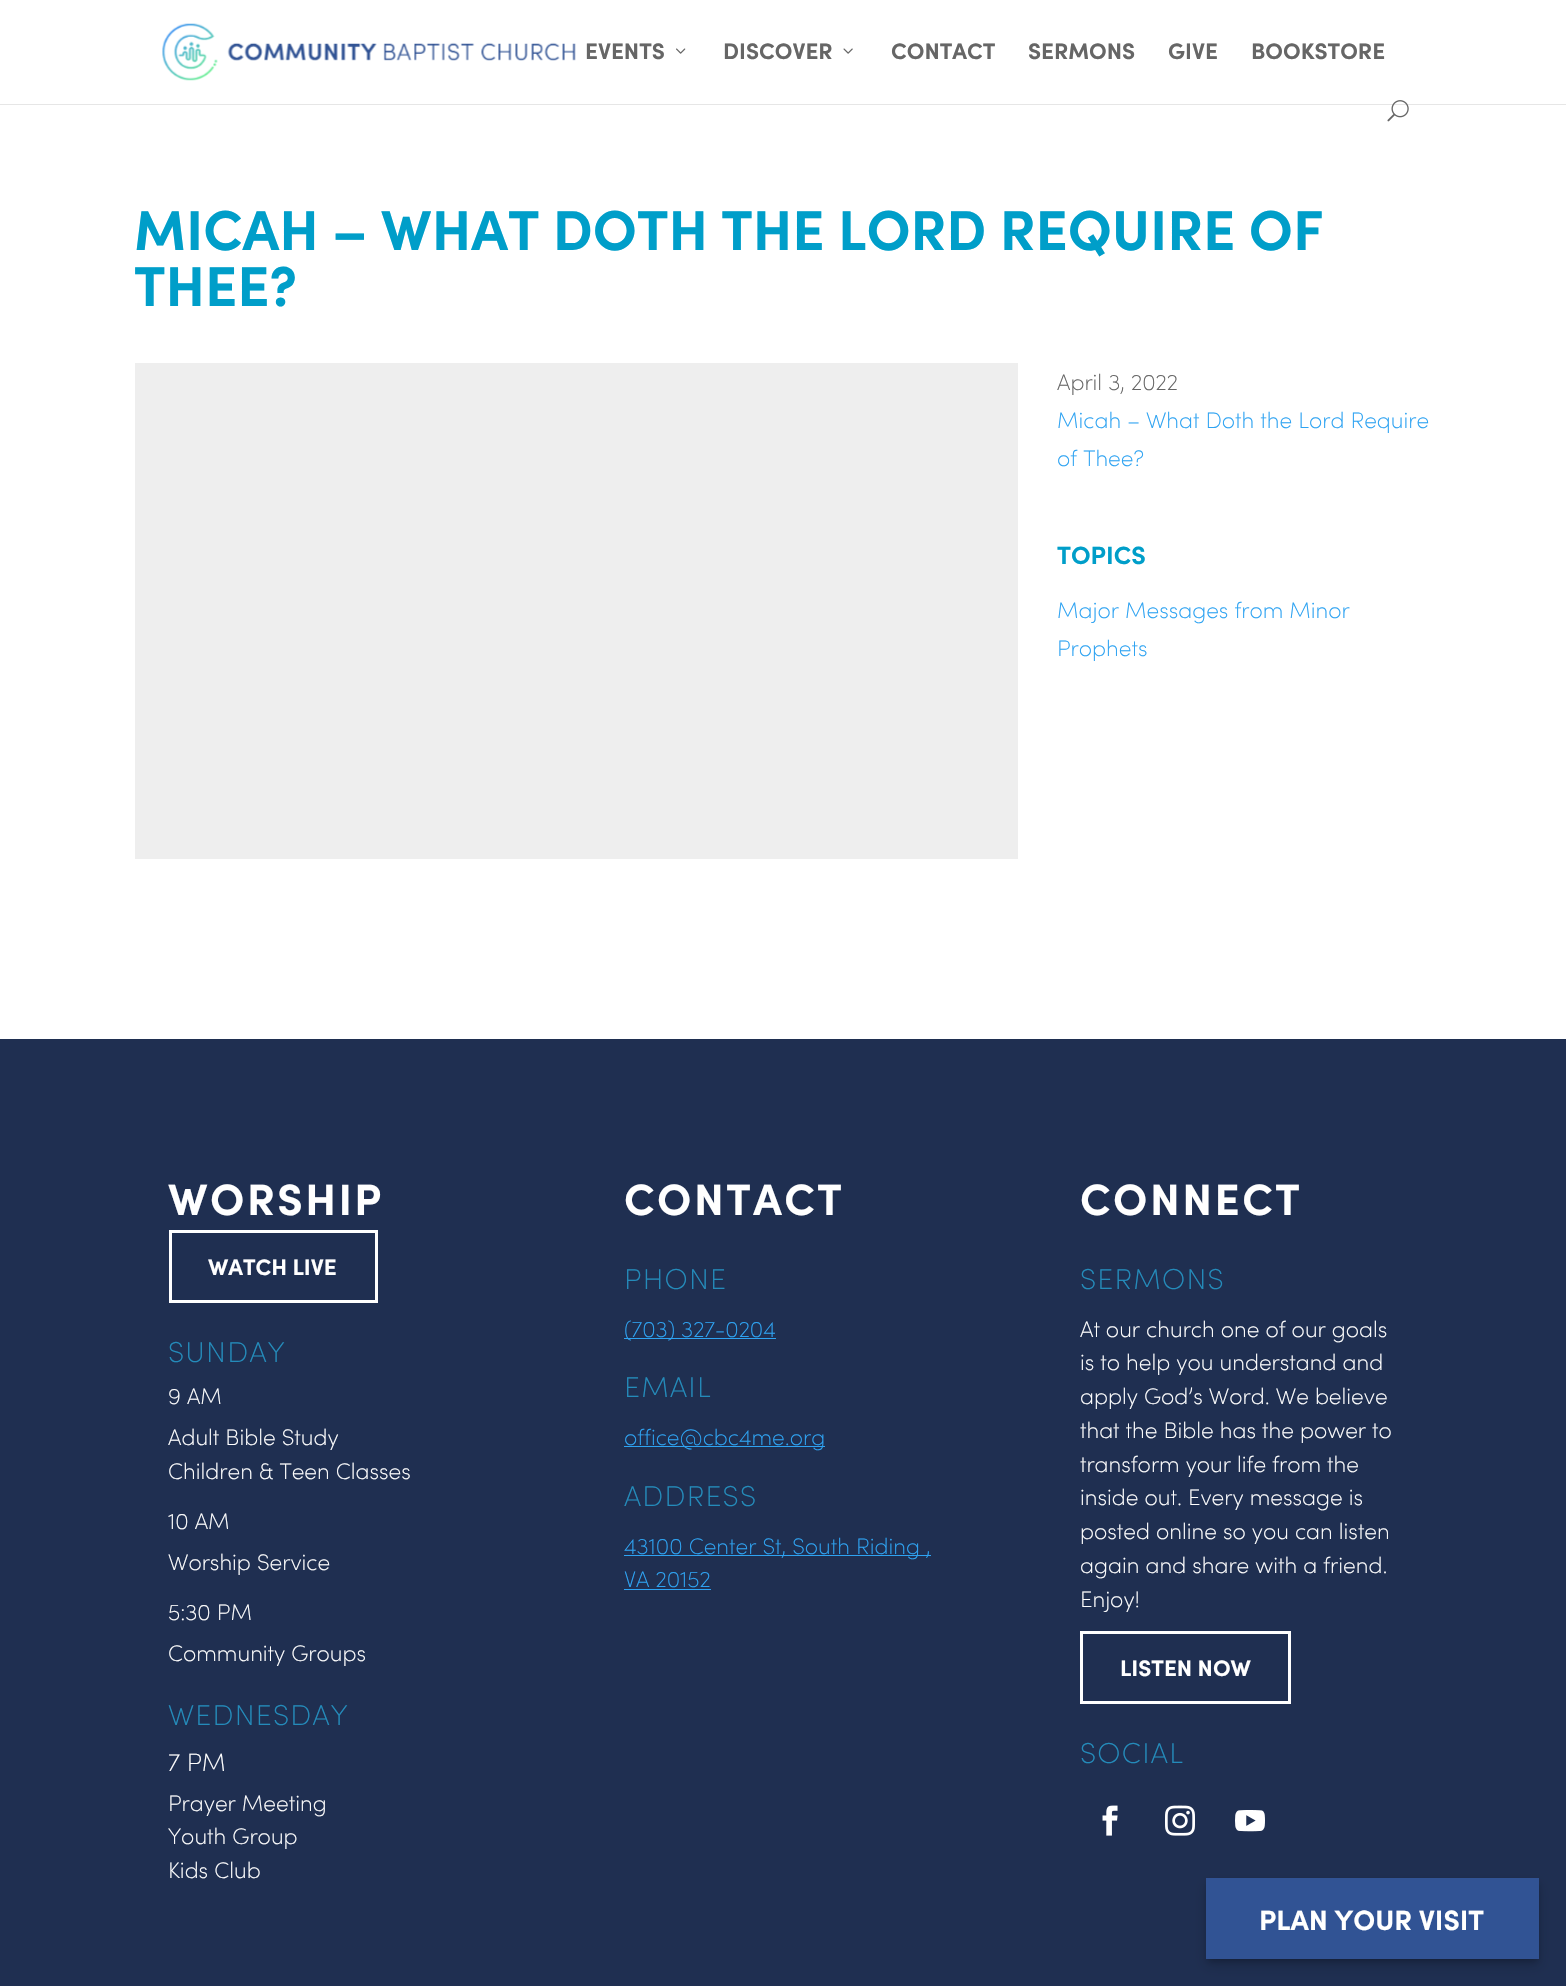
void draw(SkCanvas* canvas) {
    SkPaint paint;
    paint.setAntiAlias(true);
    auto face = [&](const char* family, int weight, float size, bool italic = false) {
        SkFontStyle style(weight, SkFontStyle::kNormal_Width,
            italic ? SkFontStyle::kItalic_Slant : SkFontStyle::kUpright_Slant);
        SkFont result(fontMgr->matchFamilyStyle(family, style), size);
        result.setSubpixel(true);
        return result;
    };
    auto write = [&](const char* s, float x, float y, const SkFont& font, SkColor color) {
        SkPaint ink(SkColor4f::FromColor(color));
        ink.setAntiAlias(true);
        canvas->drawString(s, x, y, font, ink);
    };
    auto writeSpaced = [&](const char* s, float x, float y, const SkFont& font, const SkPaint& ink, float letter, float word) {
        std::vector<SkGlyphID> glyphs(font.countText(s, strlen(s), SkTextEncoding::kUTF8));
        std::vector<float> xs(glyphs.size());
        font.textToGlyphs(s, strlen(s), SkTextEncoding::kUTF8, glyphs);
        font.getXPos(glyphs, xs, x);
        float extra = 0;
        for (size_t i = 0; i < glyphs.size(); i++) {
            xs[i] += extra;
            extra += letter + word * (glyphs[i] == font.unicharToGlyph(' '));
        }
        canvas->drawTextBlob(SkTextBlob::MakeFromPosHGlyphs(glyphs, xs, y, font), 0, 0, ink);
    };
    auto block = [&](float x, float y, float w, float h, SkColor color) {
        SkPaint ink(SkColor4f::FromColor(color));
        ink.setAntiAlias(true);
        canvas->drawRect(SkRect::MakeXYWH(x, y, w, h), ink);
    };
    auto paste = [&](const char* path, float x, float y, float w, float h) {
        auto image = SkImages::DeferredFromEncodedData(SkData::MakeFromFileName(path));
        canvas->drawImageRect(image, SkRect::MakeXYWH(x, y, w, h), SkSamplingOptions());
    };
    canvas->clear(SK_ColorWHITE);
    block(0, 104, 1566, 1, SkColorSetRGB(230, 230, 230));
    paste("pic1.png", 162, 23, 414, 58);
    auto kFont1 = face("Sofia", 700, 22.5f);
    write("EVENTS", 585, 59, kFont1, SkColorSetRGB(102, 102, 102));
    paste("pic2.png", 676, 48, 10, 6);
    write("DISCOVER", 723, 59, kFont1, SkColorSetRGB(102, 102, 102));
    paste("pic3.png", 843, 48, 10, 6);
    write("CONTACT", 891, 59, kFont1, SkColorSetRGB(102, 102, 102));
    write("SERMONS", 1028, 59, kFont1, SkColorSetRGB(102, 102, 102));
    write("GIVE", 1168, 59, kFont1, SkColorSetRGB(102, 102, 102));
    write("BOOKSTORE", 1251, 59, kFont1, SkColorSetRGB(102, 102, 102));
    paste("pic4.png", 1387, 100, 22, 22);
    auto kFont2 = face("Sofia", 700, 56.25f);
    write("MICAH – WHAT DOTH THE LORD REQUIRE OF", 134, 250, kFont2, SkColorSetRGB(0, 158, 201));
    write("THEE?", 134, 306, kFont2, SkColorSetRGB(0, 158, 201));
    block(135, 363, 883, 496, SkColorSetRGB(238, 238, 238));
    auto kFont3 = face("Sofia", 200, 22.5f);
    write("April 3, 2022", 1057, 390, kFont3, SkColorSetRGB(102, 102, 102));
    write("Micah – What Doth the Lord Require", 1057, 428, kFont3, SkColorSetRGB(46, 163, 242));
    write("of Thee?", 1057, 466, kFont3, SkColorSetRGB(46, 163, 242));
    auto kFont4 = face("Sofia", 700, 25);
    write("TOPICS", 1057, 564, kFont4, SkColorSetRGB(0, 158, 201));
    write("Major Messages from Minor", 1057, 618, kFont3, SkColorSetRGB(46, 163, 242));
    write("Prophets", 1057, 656, kFont3, SkColorSetRGB(46, 163, 242));
    block(0, 1039, 1566, 947, SkColorSetRGB(31, 47, 81));
    auto kFont5 = face("Sofia", 700, 43.75f);
    paint.setColor(SK_ColorWHITE);
    writeSpaced("WORSHIP", 168, 1215, kFont5, paint, 2.5f, 0);
    paint.setStyle(SkPaint::kStroke_Style);
    paint.setStrokeWidth(3);
    canvas->drawRect(SkRect::MakeXYWH(170.5f, 1231.5f, 206, 70), paint);
    write("WATCH LIVE", 208, 1275, kFont1, SK_ColorWHITE);
    auto kFont6 = face("Sofia", 200, 28.75f);
    paint.setStyle(SkPaint::kFill_Style);
    paint.setColor(SkColorSetRGB(36, 139, 186));
    writeSpaced("SUNDAY", 168, 1362, kFont6, paint, 1.25f, 0);
    write("9 AM", 168, 1404, kFont3, SK_ColorWHITE);
    write("Adult Bible Study", 168, 1445, kFont3, SK_ColorWHITE);
    write("Children & Teen Classes", 168, 1479, kFont3, SK_ColorWHITE);
    write("10 AM", 168, 1529, kFont3, SK_ColorWHITE);
    write("Worship Service", 168, 1570, kFont3, SK_ColorWHITE);
    write("5:30 PM", 168, 1620, kFont3, SK_ColorWHITE);
    write("Community Groups", 168, 1661, kFont3, SK_ColorWHITE);
    writeSpaced("WEDNESDAY", 168, 1725, kFont6, paint, 1.25f, 0);
    auto kFont7 = face("Sofia", 200, 25);
    write("7 PM", 168, 1771, kFont7, SK_ColorWHITE);
    write("Prayer Meeting", 168, 1811, kFont3, SK_ColorWHITE);
    write("Youth Group", 168, 1844, kFont3, SK_ColorWHITE);
    write("Kids Club", 168, 1878, kFont3, SK_ColorWHITE);
    paint.setColor(SK_ColorWHITE);
    writeSpaced("CONTACT", 624, 1215, kFont5, paint, 2.5f, 0);
    paint.setColor(SkColorSetRGB(36, 139, 186));
    writeSpaced("PHONE", 624, 1289, kFont6, paint, 1.25f, 0);
    block(624, 1338, 152, 1, SkColorSetRGB(46, 163, 242));
    write("(703) 327-0204", 624, 1337, kFont3, SkColorSetRGB(46, 163, 242));
    writeSpaced("EMAIL", 624, 1397, kFont6, paint, 1.25f, 0);
    block(624, 1446, 201, 1, SkColorSetRGB(46, 163, 242));
    write("office@cbc4me.org", 624, 1445, kFont3, SkColorSetRGB(46, 163, 242));
    writeSpaced("ADDRESS", 624, 1506, kFont6, paint, 1.25f, 0);
    block(624, 1555, 307, 1, SkColorSetRGB(46, 163, 242));
    write("43100 Center St, South Riding ,", 624, 1554, kFont3, SkColorSetRGB(46, 163, 242));
    write("VA 20152", 624, 1587, kFont3, SkColorSetRGB(46, 163, 242));
    block(624, 1589, 87, 1, SkColorSetRGB(46, 163, 242));
    paint.setColor(SK_ColorWHITE);
    writeSpaced("CONNECT", 1080, 1215, kFont5, paint, 2.5f, 0);
    paint.setColor(SkColorSetRGB(36, 139, 186));
    writeSpaced("SERMONS", 1080, 1289, kFont6, paint, 1.25f, 0);
    write("At our church one of our goals", 1080, 1337, kFont3, SK_ColorWHITE);
    write("is to help you understand and", 1080, 1370, kFont3, SK_ColorWHITE);
    write("apply God’s Word. We believe", 1080, 1404, kFont3, SK_ColorWHITE);
    write("that the Bible has the power to", 1080, 1438, kFont3, SK_ColorWHITE);
    write("transform your life from the", 1080, 1472, kFont3, SK_ColorWHITE);
    write("inside out. Every message is", 1080, 1505, kFont3, SK_ColorWHITE);
    write("posted online so you can listen", 1080, 1539, kFont3, SK_ColorWHITE);
    write("again and share with a friend.", 1080, 1573, kFont3, SK_ColorWHITE);
    write("Enjoy!", 1080, 1607, kFont3, SK_ColorWHITE);
    paint.setStyle(SkPaint::kStroke_Style);
    paint.setColor(SK_ColorWHITE);
    canvas->drawRect(SkRect::MakeXYWH(1081.5f, 1632.5f, 208, 70), paint);
    write("LISTEN NOW", 1120, 1676, kFont1, SK_ColorWHITE);
    paint.setStyle(SkPaint::kFill_Style);
    paint.setColor(SkColorSetRGB(36, 139, 186));
    writeSpaced("SOCIAL", 1080, 1763, kFont6, paint, 1.25f, 0);
    paste("pic5.png", 1102, 1805, 16, 31);
    paste("pic6.png", 1165, 1805, 30, 31);
    paste("pic7.png", 1235, 1810, 30, 22);
    paint.setColor(SkColorSetARGB(36, 0, 0, 0));
    paint.setMaskFilter(SkMaskFilter::MakeBlur(kNormal_SkBlurStyle, 6));
    canvas->drawRect(SkRect::MakeXYWH(1206, 1885, 333, 81), paint);
    paint.setMaskFilter(nullptr);
    paint.setColor(SkColorSetARGB(51, 0, 0, 0));
    paint.setMaskFilter(SkMaskFilter::MakeBlur(kNormal_SkBlurStyle, 3));
    canvas->drawRect(SkRect::MakeXYWH(1208, 1883, 330, 78), paint);
    paint.setMaskFilter(nullptr);
    block(1206, 1878, 333, 81, SkColorSetRGB(49, 83, 148));
    auto kFont8 = face("Sofia", 700, 28);
    write("PLAN YOUR VISIT", 1259, 1930, kFont8, SK_ColorWHITE);
}
